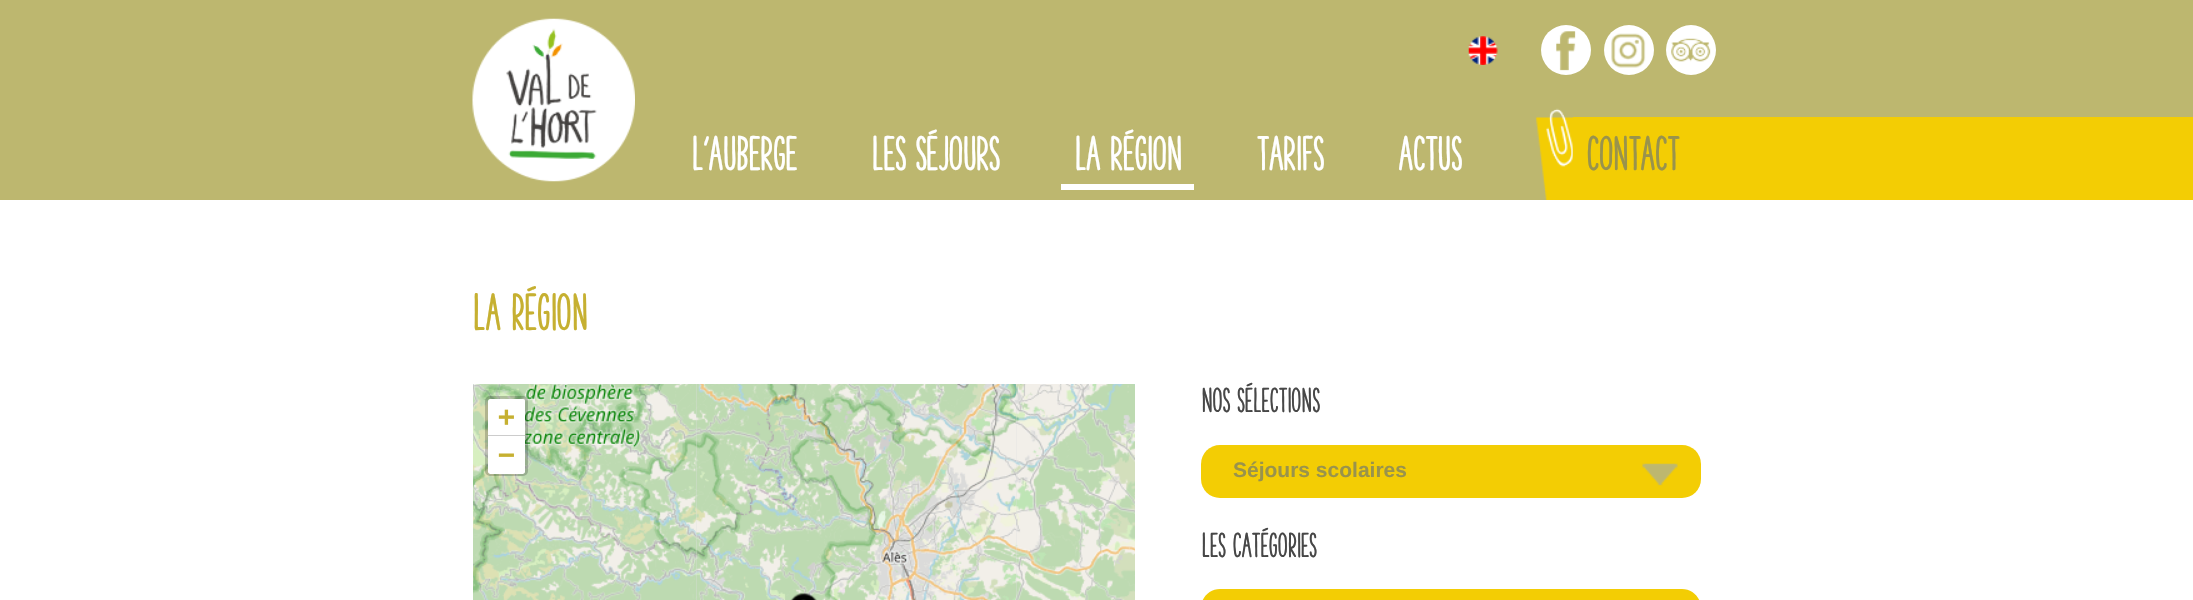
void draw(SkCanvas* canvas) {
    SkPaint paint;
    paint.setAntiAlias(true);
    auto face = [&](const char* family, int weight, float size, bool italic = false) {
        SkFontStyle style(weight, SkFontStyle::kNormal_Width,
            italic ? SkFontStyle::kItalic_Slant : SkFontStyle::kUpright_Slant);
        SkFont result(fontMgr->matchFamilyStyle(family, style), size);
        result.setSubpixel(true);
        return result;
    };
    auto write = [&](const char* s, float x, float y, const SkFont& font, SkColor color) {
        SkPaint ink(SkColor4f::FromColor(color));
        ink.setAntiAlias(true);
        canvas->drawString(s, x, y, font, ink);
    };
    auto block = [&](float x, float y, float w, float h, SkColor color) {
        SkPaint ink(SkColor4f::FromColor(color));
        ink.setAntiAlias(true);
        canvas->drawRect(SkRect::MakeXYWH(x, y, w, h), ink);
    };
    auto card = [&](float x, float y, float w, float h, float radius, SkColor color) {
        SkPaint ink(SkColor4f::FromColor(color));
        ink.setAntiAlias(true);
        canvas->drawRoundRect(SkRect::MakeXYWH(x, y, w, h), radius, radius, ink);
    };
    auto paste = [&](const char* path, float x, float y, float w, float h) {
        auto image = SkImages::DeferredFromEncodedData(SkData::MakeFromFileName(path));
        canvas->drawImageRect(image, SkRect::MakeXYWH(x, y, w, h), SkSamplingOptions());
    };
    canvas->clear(SK_ColorWHITE);
    block(0, 0, 2193, 200, SkColorSetRGB(189, 183, 111));
    paste("pic1.png", 472, 18, 163, 164);
    paste("pic2.png", 1468, 36, 30, 29);
    paint.setColor(SK_ColorWHITE);
    canvas->drawCircle(1566, 50, 25, paint);
    paste("pic3.png", 1556, 31, 20, 40);
    canvas->drawCircle(1629, 50, 25, paint);
    paste("pic4.png", 1611, 33, 35, 35);
    canvas->drawCircle(1691, 50, 25, paint);
    paste("pic5.png", 1671, 38, 40, 24);
    auto kFont1 = face("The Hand", 800, 45.5f);
    write("L'AUBERGE", 691, 170, kFont1, SK_ColorWHITE);
    write("LES SÉJOURS", 871, 170, kFont1, SK_ColorWHITE);
    block(1061, 184, 133, 6, SK_ColorWHITE);
    write("LA RÉGION", 1074, 170, kFont1, SK_ColorWHITE);
    write("TARIFS", 1256, 170, kFont1, SK_ColorWHITE);
    write("ACTUS", 1398, 170, kFont1, SK_ColorWHITE);
    paste("pic6.png", 1536, 108, 37, 92);
    block(1573, 117, 620, 83, SkColorSetRGB(243, 205, 4));
    write("CONTACT", 1586, 170, kFont1, SkColorSetRGB(153, 147, 76));
    auto kFont2 = face("The Hand", 800, 49);
    write("La région", 472, 330, kFont2, SkColorSetRGB(198, 176, 49));
    block(696, 384, 321, 216, SkColorSetRGB(221, 221, 221));
    paste("pic7.png", 473, 384, 223, 216);
    paste("pic8.png", 696, 384, 320, 216);
    paste("pic9.png", 1016, 384, 119, 216);
    paste("pic10.png", 790, 593, 27, 7);
    paint.setStyle(SkPaint::kStroke_Style);
    paint.setStrokeWidth(3);
    paint.setColor(SkColorSetARGB(51, 0, 0, 0));
    canvas->drawRoundRect(SkRect::MakeXYWH(486.5f, 397.5f, 40, 77), 3.5f, 3.5f, paint);
    paint.setStyle(SkPaint::kFill_Style);
    paint.setColor(SK_ColorWHITE);
    canvas->drawPath(SkPathBuilder().moveTo(490.5f, 399).lineTo(522.5f, 399).cubicTo(524, 399, 525, 400, 525, 401.5f).lineTo(525, 436).lineTo(488, 436).lineTo(488, 401.5f).cubicTo(488, 400, 489, 399, 490.5f, 399).close().detach(), paint);
    block(488, 435, 37, 1, SkColorSetRGB(204, 204, 204));
    auto kFont3 = face("DejaVu Sans Mono", 700, 28);
    write("+", 498, 426, kFont3, SkColorSetRGB(198, 176, 49));
    canvas->drawPath(SkPathBuilder().moveTo(488, 436).lineTo(525, 436).lineTo(525, 471.5f).cubicTo(525, 473, 524, 474, 522.5f, 474).lineTo(490.5f, 474).cubicTo(489, 474, 488, 473, 488, 471.5f).close().detach(), paint);
    write("−", 498, 464, kFont3, SkColorSetRGB(198, 176, 49));
    auto kFont4 = face("The Hand", 800, 32.5f);
    write("Nos sélections", 1201, 412, kFont4, SkColorSetRGB(71, 71, 71));
    card(1201, 445, 500, 53, 19, SkColorSetRGB(243, 205, 4));
    paste("pic11.png", 1642, 463, 36, 23);
    auto kFont5 = face("Liberation Sans", 700, 21);
    write("Séjours scolaires", 1233, 477, kFont5, SkColorSetRGB(153, 147, 76));
    write("Les catégories", 1201, 557, kFont4, SkColorSetRGB(71, 71, 71));
    paint.setColor(SkColorSetRGB(243, 205, 4));
    canvas->drawPath(SkPathBuilder().moveTo(1220, 589).lineTo(1682, 589).cubicTo(1692.5f, 589, 1701, 597.5f, 1701, 608).lineTo(1701, 600).lineTo(1201, 600).lineTo(1201, 608).cubicTo(1201, 597.5f, 1209.5f, 589, 1220, 589).close().detach(), paint);
}
